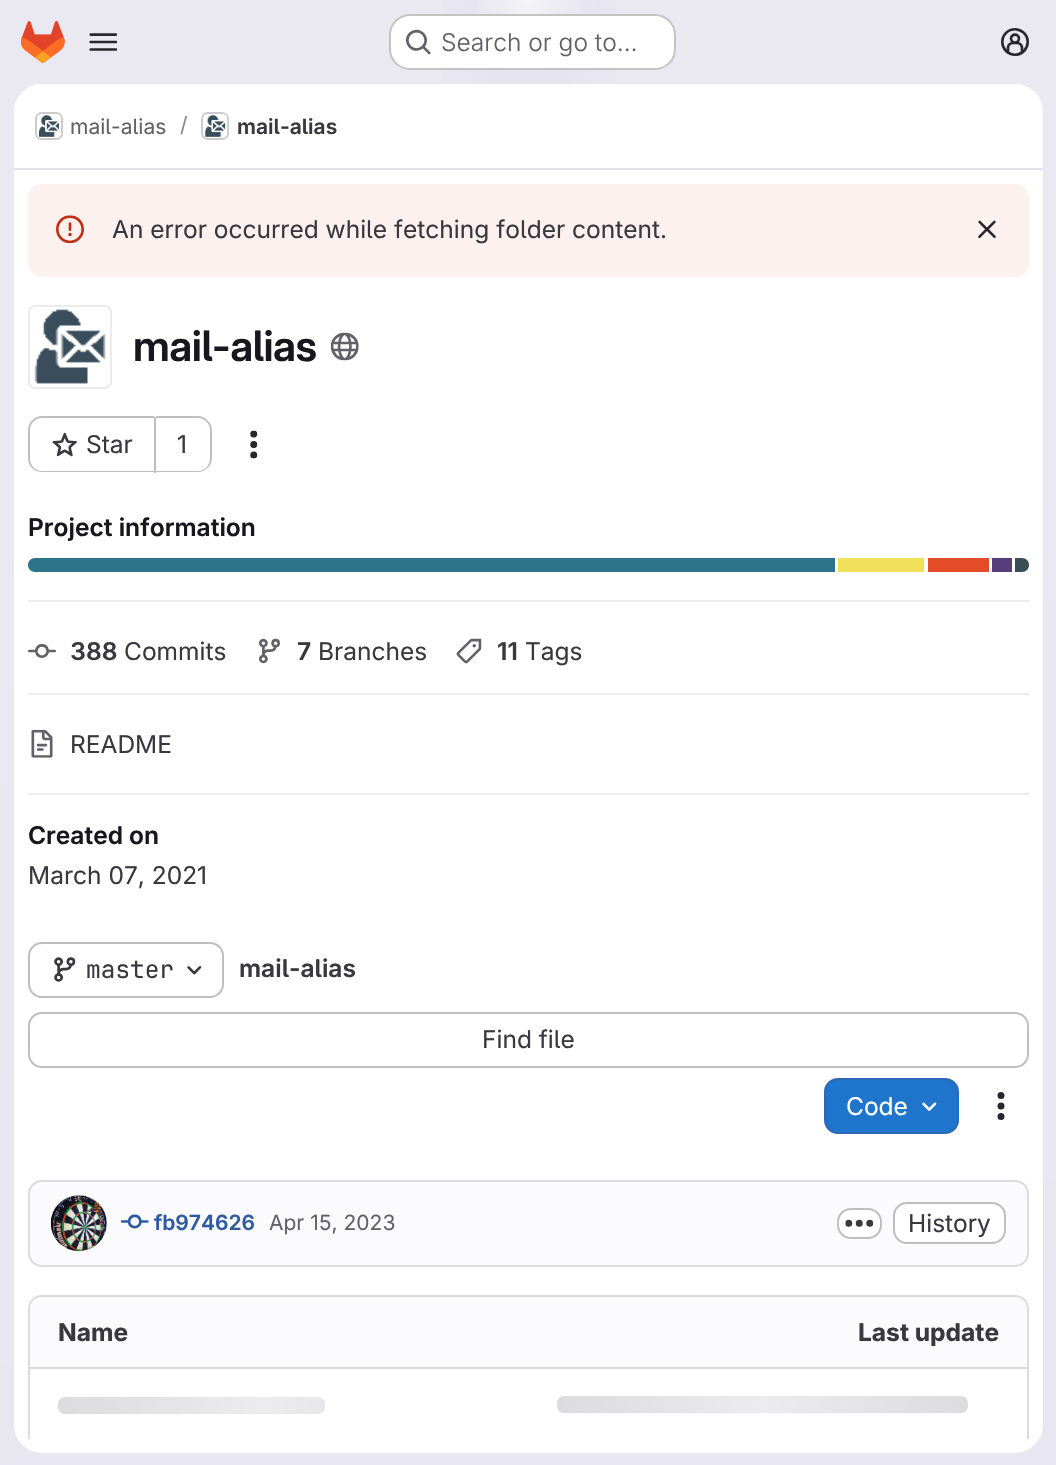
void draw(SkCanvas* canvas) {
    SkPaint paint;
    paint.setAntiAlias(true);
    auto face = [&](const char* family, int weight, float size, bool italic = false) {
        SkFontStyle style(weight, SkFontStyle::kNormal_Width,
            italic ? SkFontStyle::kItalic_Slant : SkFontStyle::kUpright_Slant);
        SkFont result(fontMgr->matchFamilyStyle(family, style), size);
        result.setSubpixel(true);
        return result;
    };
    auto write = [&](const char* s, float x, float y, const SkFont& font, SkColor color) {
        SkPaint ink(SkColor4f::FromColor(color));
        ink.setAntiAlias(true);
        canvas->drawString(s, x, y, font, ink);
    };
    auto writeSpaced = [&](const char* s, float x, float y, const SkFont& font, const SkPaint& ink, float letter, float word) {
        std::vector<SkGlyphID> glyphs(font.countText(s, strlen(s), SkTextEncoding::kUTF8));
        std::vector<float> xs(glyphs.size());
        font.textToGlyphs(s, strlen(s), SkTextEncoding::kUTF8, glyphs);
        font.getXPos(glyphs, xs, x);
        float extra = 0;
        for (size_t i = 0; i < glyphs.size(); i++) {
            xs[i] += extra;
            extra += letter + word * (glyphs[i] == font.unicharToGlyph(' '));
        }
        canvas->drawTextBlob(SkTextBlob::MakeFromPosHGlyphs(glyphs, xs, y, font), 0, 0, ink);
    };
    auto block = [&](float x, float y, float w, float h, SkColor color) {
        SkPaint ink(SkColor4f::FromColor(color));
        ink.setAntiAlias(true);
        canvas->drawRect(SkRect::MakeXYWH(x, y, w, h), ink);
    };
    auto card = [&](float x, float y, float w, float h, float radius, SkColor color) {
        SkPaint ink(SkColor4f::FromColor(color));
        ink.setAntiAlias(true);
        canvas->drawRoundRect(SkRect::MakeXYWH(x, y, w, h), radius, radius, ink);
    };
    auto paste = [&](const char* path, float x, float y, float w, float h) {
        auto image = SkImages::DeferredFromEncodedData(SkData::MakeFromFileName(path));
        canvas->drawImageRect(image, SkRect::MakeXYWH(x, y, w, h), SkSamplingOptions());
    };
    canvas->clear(SK_ColorWHITE);
    {
        const SkColor colors[] = {SkColorSetRGB(232, 230, 240), SkColorSetRGB(234, 233, 242)};
        const float stops[] = {0, 0.7f};
        const SkPoint ends[] = {{670, 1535}, {387, -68}};
        paint.setShader(SkGradientShader::MakeLinear(ends, colors, stops, 2, SkTileMode::kClamp));
        paint.setAlpha(255);
    }
    canvas->drawRect(SkRect::MakeXYWH(0, 0, 1056, 1465), paint);
    {
        const SkColor colors[] = {SkColorSetRGB(228, 226, 237), SkColorSetARGB(0, 228, 226, 237)};
        const float stops[] = {0, 0.23f};
        SkMatrix m = SkMatrix::Translate(529, 0).preScale(529, 1467);
        paint.setShader(SkGradientShader::MakeRadial({0, 0}, 1, colors, stops, 2, SkTileMode::kClamp, 0, &m));
        paint.setAlpha(255);
    }
    canvas->drawRect(SkRect::MakeXYWH(442, 0, 174, 84), paint);
    {
        const SkColor colors[] = {SkColorSetRGB(228, 226, 236), SkColorSetARGB(0, 228, 226, 236)};
        const float stops[] = {0, 0.17f};
        SkMatrix m = SkMatrix::Translate(529, 0).preScale(529, 1467);
        paint.setShader(SkGradientShader::MakeRadial({0, 0}, 1, colors, stops, 2, SkTileMode::kClamp, 0, &m));
        paint.setAlpha(255);
    }
    canvas->drawRect(SkRect::MakeXYWH(487, 0, 84, 83), paint);
    {
        const SkColor colors[] = {SkColorSetARGB(153, 255, 255, 255), SkColorSetARGB(0, 255, 255, 255)};
        const float stops[] = {0, 0.04f};
        paint.setShader(SkGradientShader::MakeRadial({529, 0}, 1559, colors, stops, 2, SkTileMode::kClamp));
        paint.setAlpha(255);
    }
    canvas->drawRect(SkRect::MakeXYWH(477, 0, 104, 14), paint);
    paste("pic1.png", 21, 21, 44, 42);
    paste("pic2.png", 89, 33, 29, 18);
    card(389, 14, 287, 56, 21, SK_ColorWHITE);
    paint.setStyle(SkPaint::kStroke_Style);
    paint.setStrokeWidth(2);
    paint.setShader(nullptr);
    paint.setColor(SkColorSetARGB(61, 5, 5, 6));
    canvas->drawRoundRect(SkRect::MakeXYWH(390, 15, 285, 54), 20, 20, paint);
    paste("pic3.png", 406, 29, 25, 26);
    auto kFont1 = face("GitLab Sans", 300, 24.5f);
    write("Search or go to…", 441, 51, kFont1, SkColorSetRGB(98, 97, 104));
    paste("pic4.png", 1001, 28, 28, 28);
    card(14, 84, 1029, 1369, 28, SK_ColorWHITE);
    paint.setStyle(SkPaint::kFill_Style);
    paint.setColor(SK_ColorWHITE);
    canvas->drawPath(SkPathBuilder().moveTo(42, 84).lineTo(1015, 84).cubicTo(1030.5f, 84, 1043, 96.5f, 1043, 112).lineTo(1043, 170).lineTo(14, 170).lineTo(14, 112).cubicTo(14, 96.5f, 26.5f, 84, 42, 84).close().detach(), paint);
    block(14, 168, 1029, 2, SkColorSetRGB(225, 223, 236));
    paint.setStyle(SkPaint::kStroke_Style);
    paint.setColor(SkColorSetRGB(220, 220, 222));
    canvas->drawRoundRect(SkRect::MakeXYWH(36, 113, 26, 26), 6, 6, paint);
    paste("pic5.png", 37, 114, 24, 24);
    paint.setColor(SkColorSetARGB(20, 5, 5, 6));
    canvas->drawRoundRect(SkRect::MakeXYWH(36, 113, 26, 26), 6, 6, paint);
    auto kFont2 = face("GitLab Sans", 400, 21);
    write("mail-alias", 70, 134, kFont2, SkColorSetRGB(98, 97, 104));
    write("/", 180, 132, kFont2, SkColorSetRGB(137, 136, 141));
    paint.setColor(SkColorSetRGB(220, 220, 222));
    canvas->drawRoundRect(SkRect::MakeXYWH(202, 113, 26, 26), 6, 6, paint);
    paste("pic6.png", 203, 114, 25, 24);
    paint.setColor(SkColorSetARGB(20, 5, 5, 6));
    canvas->drawRoundRect(SkRect::MakeXYWH(202, 113, 26, 26), 6, 6, paint);
    auto kFont3 = face("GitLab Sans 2", 600, 21);
    write("mail-alias", 237, 134, kFont3, SkColorSetRGB(58, 56, 63));
    card(28, 184, 1001, 93, 14, SkColorSetRGB(252, 241, 239));
    paste("pic7.png", 56, 215, 28, 29);
    auto kFont4 = face("GitLab Sans", 400, 24.5f);
    write("An error occurred while fetching folder content.", 112, 238, kFont4, SkColorSetRGB(58, 56, 63));
    paste("pic8.png", 978, 220, 18, 18);
    paste("pic9.png", 34, 309, 72, 75);
    paint.setColor(SkColorSetRGB(235, 235, 235));
    canvas->drawRoundRect(SkRect::MakeXYWH(29, 306, 82, 82), 6, 6, paint);
    auto kFont5 = face("GitLab Sans", 600, 42);
    paint.setStyle(SkPaint::kFill_Style);
    paint.setColor(SkColorSetRGB(24, 23, 29));
    writeSpaced("mail-alias", 133, 361, kFont5, paint, -0.5f, 0);
    paste("pic10.png", 330, 332, 29, 29);
    paint.setColor(SkColorSetRGB(191, 191, 195));
    canvas->drawPath(SkPathBuilder(SkPathFillType::kEvenOdd).moveTo(42, 416).lineTo(154, 416).lineTo(154, 472).lineTo(42, 472).cubicTo(34, 472, 28, 466, 28, 458).lineTo(28, 430).cubicTo(28, 423, 34, 416, 42, 416).close().moveTo(42, 418).lineTo(154, 418).lineTo(154, 471).lineTo(42, 471).cubicTo(35, 471, 30, 465, 30, 458).lineTo(30, 430).cubicTo(30, 424, 35, 418, 42, 418).close().detach(), paint);
    paste("pic11.png", 52, 432, 25, 25);
    write("Star", 86, 453, kFont4, SkColorSetRGB(58, 56, 63));
    canvas->drawPath(SkPathBuilder(SkPathFillType::kEvenOdd).moveTo(156, 416).lineTo(198, 416).cubicTo(205, 416, 212, 423, 212, 430).lineTo(212, 458).cubicTo(212, 466, 205, 472, 198, 472).lineTo(156, 472).close().moveTo(156, 418).lineTo(198, 418).cubicTo(205, 418, 210, 424, 210, 430).lineTo(210, 458).cubicTo(210, 465, 205, 471, 198, 471).lineTo(156, 471).close().detach(), paint);
    block(154, 417, 2, 56, SkColorSetRGB(191, 191, 195));
    write("1", 177, 453, kFont4, SkColorSetRGB(58, 56, 63));
    paste("pic12.png", 250, 430, 8, 29);
    block(28, 600, 1001, 2, SkColorSetRGB(236, 236, 239));
    auto kFont6 = face("GitLab Sans 2", 600, 24.5f);
    write("Project information", 28, 536, kFont6, SkColorSetRGB(24, 23, 29));
    paint.setColor(SkColorSetRGB(43, 116, 137));
    canvas->drawPath(SkPathBuilder().moveTo(35, 558).lineTo(835, 558).lineTo(835, 572).lineTo(35, 572).cubicTo(31, 572, 28, 569, 28, 565).cubicTo(28, 561, 31, 558, 35, 558).close().detach(), paint);
    block(838, 558, 86, 14, SkColorSetRGB(241, 224, 90));
    block(928, 558, 61, 14, SkColorSetRGB(227, 76, 38));
    block(992, 558, 20, 14, SkColorSetRGB(86, 61, 124));
    paint.setColor(SkColorSetRGB(56, 77, 84));
    canvas->drawPath(SkPathBuilder().moveTo(1015, 558).lineTo(1022, 558).cubicTo(1026, 558, 1029, 561, 1029, 565).cubicTo(1029, 569, 1026, 572, 1022, 572).lineTo(1015, 572).close().detach(), paint);
    block(28, 693, 1001, 2, SkColorSetRGB(236, 236, 239));
    paste("pic13.png", 28, 644, 28, 14);
    write("388", 70, 660, kFont6, SkColorSetRGB(58, 56, 63));
    write("Commits", 124, 660, kFont4, SkColorSetRGB(58, 56, 63));
    paste("pic14.png", 259, 638, 21, 26);
    write("7", 297, 660, kFont6, SkColorSetRGB(58, 56, 63));
    write("Branches", 318, 660, kFont4, SkColorSetRGB(58, 56, 63));
    paste("pic15.png", 456, 638, 26, 26);
    write("11", 497, 660, kFont6, SkColorSetRGB(58, 56, 63));
    write("Tags", 525, 660, kFont4, SkColorSetRGB(58, 56, 63));
    block(28, 793, 1001, 2, SkColorSetRGB(236, 236, 239));
    paste("pic16.png", 31, 729, 22, 29);
    write("README", 70, 753, kFont4, SkColorSetRGB(58, 56, 63));
    write("Created on", 28, 844, kFont6, SkColorSetRGB(24, 23, 29));
    write("March 07, 2021", 28, 884, kFont4, SkColorSetRGB(58, 56, 63));
    paint.setStyle(SkPaint::kStroke_Style);
    paint.setColor(SkColorSetRGB(191, 191, 195));
    canvas->drawRoundRect(SkRect::MakeXYWH(29, 943, 194, 54), 13, 13, paint);
    paste("pic17.png", 54, 957, 22, 25);
    auto kFont7 = face("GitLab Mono", 400, 24.5f);
    write("master", 86, 978, kFont7, SkColorSetRGB(58, 56, 63));
    paste("pic18.png", 187, 966, 15, 9);
    write("mail-alias", 239, 977, kFont6, SkColorSetRGB(58, 56, 63));
    canvas->drawRoundRect(SkRect::MakeXYWH(29, 1013, 999, 54), 13, 13, paint);
    write("Find file", 482, 1048, kFont4, SkColorSetRGB(58, 56, 63));
    paint.setStyle(SkPaint::kFill_Style);
    paint.setColor(SkColorSetRGB(31, 117, 203));
    canvas->drawRoundRect(SkRect::MakeXYWH(825, 1079, 133, 54), 13, 13, paint);
    paint.setStyle(SkPaint::kStroke_Style);
    paint.setColor(SkColorSetRGB(47, 104, 180));
    canvas->drawRoundRect(SkRect::MakeXYWH(825, 1079, 133, 54), 13, 13, paint);
    write("Code", 846, 1115, kFont4, SK_ColorWHITE);
    paste("pic19.png", 922, 1102, 15, 9);
    paste("pic20.png", 997, 1092, 8, 28);
    paint.setStyle(SkPaint::kFill_Style);
    paint.setColor(SkColorSetRGB(251, 250, 253));
    canvas->drawRoundRect(SkRect::MakeXYWH(29, 1181, 999, 85), 13, 13, paint);
    paint.setStyle(SkPaint::kStroke_Style);
    paint.setColor(SkColorSetRGB(220, 220, 222));
    canvas->drawRoundRect(SkRect::MakeXYWH(29, 1181, 999, 85), 13, 13, paint);
    paste("pic21.png", 50, 1195, 57, 57);
    paint.setColor(SkColorSetARGB(20, 5, 5, 6));
    canvas->drawCircle(79, 1223, 27, paint);
    paste("pic22.png", 121, 1214, 28, 15);
    write("fb974626", 154, 1230, kFont3, SkColorSetRGB(47, 92, 160));
    write("Apr 15, 2023", 269, 1230, kFont2, SkColorSetRGB(98, 97, 104));
    paint.setStyle(SkPaint::kFill_Style);
    paint.setColor(SK_ColorWHITE);
    canvas->drawRoundRect(SkRect::MakeXYWH(838, 1209, 43, 29), 13, 13, paint);
    paint.setStyle(SkPaint::kStroke_Style);
    paint.setColor(SkColorSetRGB(191, 191, 195));
    canvas->drawRoundRect(SkRect::MakeXYWH(838, 1209, 43, 29), 13, 13, paint);
    paste("pic23.png", 845, 1219, 29, 8);
    paint.setStyle(SkPaint::kFill_Style);
    paint.setColor(SK_ColorWHITE);
    canvas->drawRoundRect(SkRect::MakeXYWH(894, 1203, 111, 40), 13, 13, paint);
    paint.setStyle(SkPaint::kStroke_Style);
    paint.setColor(SkColorSetRGB(191, 191, 195));
    canvas->drawRoundRect(SkRect::MakeXYWH(894, 1203, 111, 40), 13, 13, paint);
    write("History", 908, 1232, kFont4, SkColorSetRGB(58, 56, 63));
    canvas->save();
    canvas->clipRect(SkRect::MakeXYWH(14, 170, 1029, 1269));
    paint.setStyle(SkPaint::kFill_Style);
    paint.setColor(SkColorSetRGB(220, 220, 222));
    canvas->drawPath(SkPathBuilder().moveTo(42, 1295).cubicTo(34, 1295, 28, 1301, 28, 1309).lineTo(28, 1449).lineTo(30, 1450).lineTo(30, 1309).cubicTo(30, 1302, 35, 1297, 42, 1297).lineTo(1015, 1297).cubicTo(1022, 1297, 1027, 1302, 1027, 1309).lineTo(1027, 1450).lineTo(1029, 1449).lineTo(1029, 1309).cubicTo(1029, 1301, 1023, 1295, 1015, 1295).close().detach(), paint);
    canvas->restore();
    paint.setColor(SkColorSetRGB(251, 250, 253));
    canvas->drawPath(SkPathBuilder().moveTo(42, 1297).lineTo(529, 1297).lineTo(529, 1369).lineTo(30, 1369).lineTo(30, 1309).cubicTo(30, 1302.5f, 35.5f, 1297, 42, 1297).close().detach(), paint);
    auto kFont8 = face("GitLab Sans", 700, 24.5f);
    write("Name", 58, 1341, kFont8, SkColorSetRGB(58, 56, 63));
    canvas->drawPath(SkPathBuilder().moveTo(529, 1297).lineTo(1015, 1297).cubicTo(1021.5f, 1297, 1027, 1302.5f, 1027, 1309).lineTo(1027, 1369).lineTo(529, 1369).close().detach(), paint);
    write("Last update", 858, 1341, kFont8, SkColorSetRGB(58, 56, 63));
    block(30, 1367, 997, 2, SkColorSetRGB(220, 220, 222));
    {
        const SkColor colors[] = {SkColorSetRGB(220, 220, 222), SkColorSetRGB(236, 236, 239), SkColorSetRGB(220, 220, 222)};
        const float stops[] = {0, 0.5f, 1};
        const SkPoint ends[] = {{557, 1396}, {968, 1396}};
        paint.setShader(SkGradientShader::MakeLinear(ends, colors, stops, 3, SkTileMode::kClamp));
        paint.setAlpha(255);
    }
    canvas->drawRoundRect(SkRect::MakeXYWH(557, 1396, 411, 17), 7, 7, paint);
    {
        const SkColor colors[] = {SkColorSetRGB(220, 220, 222), SkColorSetRGB(236, 236, 239), SkColorSetRGB(220, 220, 222)};
        const float stops[] = {0, 0.5f, 1};
        const SkPoint ends[] = {{58, 1397}, {469, 1397}};
        paint.setShader(SkGradientShader::MakeLinear(ends, colors, stops, 3, SkTileMode::kClamp));
        paint.setAlpha(255);
    }
    canvas->drawRoundRect(SkRect::MakeXYWH(58, 1397, 267, 17), 7, 7, paint);
}
